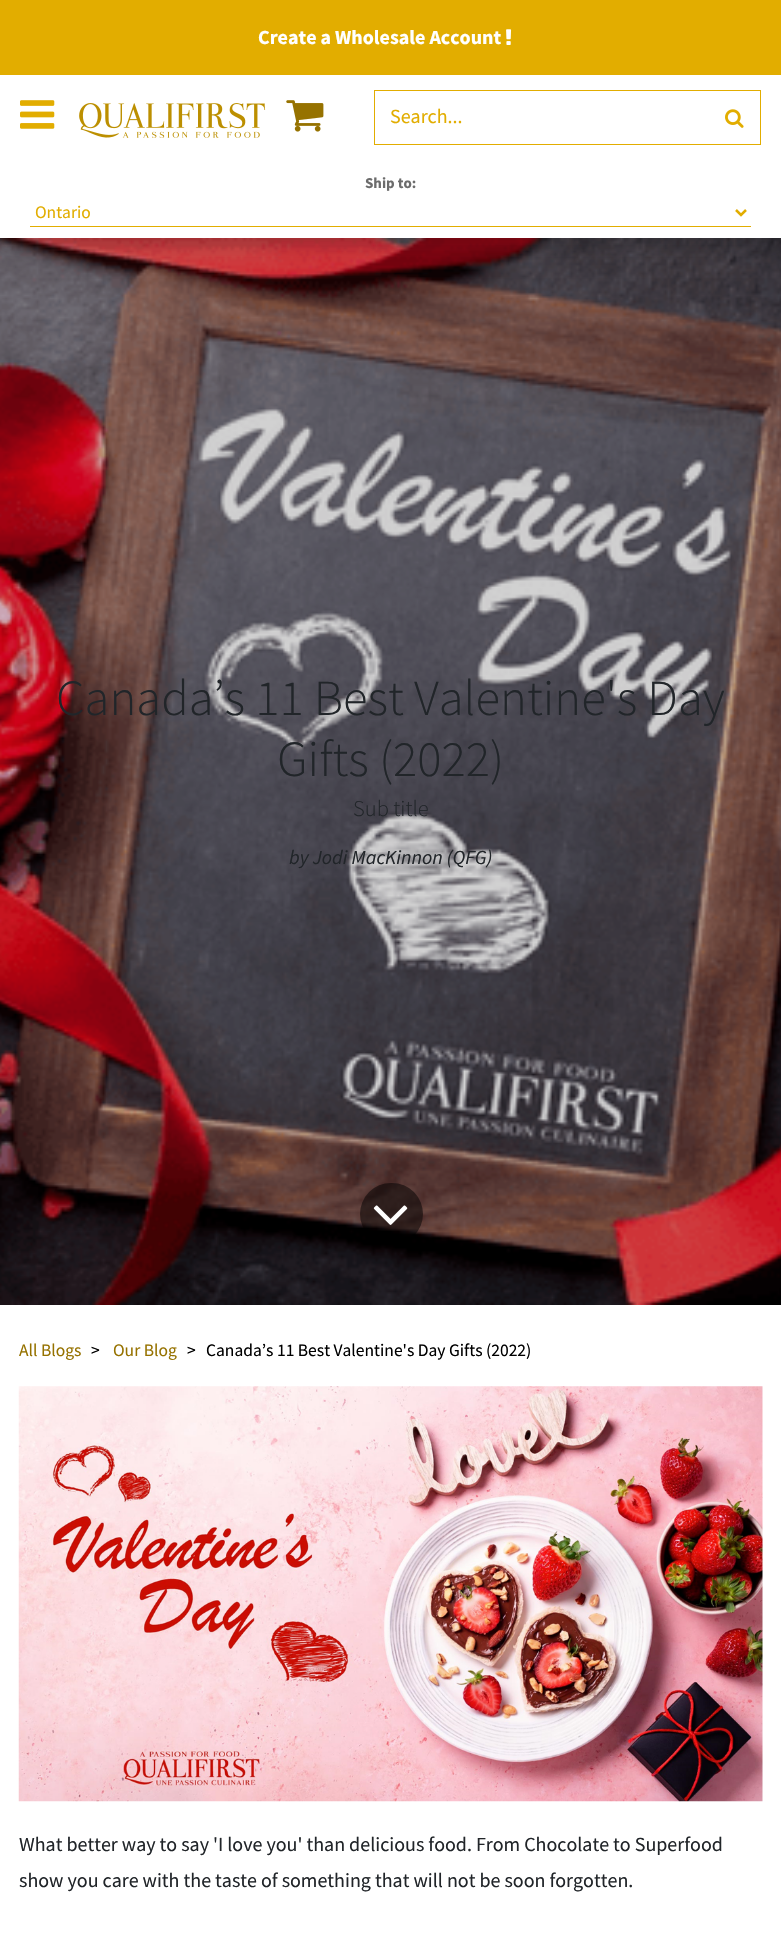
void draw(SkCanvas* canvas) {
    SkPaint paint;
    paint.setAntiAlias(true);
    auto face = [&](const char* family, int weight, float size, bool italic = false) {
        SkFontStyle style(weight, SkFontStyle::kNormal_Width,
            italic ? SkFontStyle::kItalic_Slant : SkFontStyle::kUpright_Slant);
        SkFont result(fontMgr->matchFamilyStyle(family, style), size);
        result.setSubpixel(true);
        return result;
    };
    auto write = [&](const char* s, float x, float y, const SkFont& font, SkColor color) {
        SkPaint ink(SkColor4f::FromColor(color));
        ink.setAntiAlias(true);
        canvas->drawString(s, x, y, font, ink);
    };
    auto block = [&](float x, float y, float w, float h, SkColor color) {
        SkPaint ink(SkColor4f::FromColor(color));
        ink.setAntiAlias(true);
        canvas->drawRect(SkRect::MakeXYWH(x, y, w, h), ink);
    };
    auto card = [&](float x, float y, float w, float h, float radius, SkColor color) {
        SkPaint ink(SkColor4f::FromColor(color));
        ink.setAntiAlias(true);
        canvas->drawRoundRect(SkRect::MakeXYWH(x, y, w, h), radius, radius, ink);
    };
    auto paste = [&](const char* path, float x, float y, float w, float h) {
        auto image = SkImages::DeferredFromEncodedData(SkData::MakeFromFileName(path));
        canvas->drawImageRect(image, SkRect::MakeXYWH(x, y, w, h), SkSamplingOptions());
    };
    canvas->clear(SK_ColorWHITE);
    paste("pic6.png", 0, 238, 781, 1067);
    paint.setColor(SkColorSetARGB(38, 34, 34, 34));
    paint.setMaskFilter(SkMaskFilter::MakeBlur(kNormal_SkBlurStyle, 10));
    canvas->drawRect(SkRect::MakeXYWH(0, 10, 781, 238), paint);
    paint.setMaskFilter(nullptr);
    block(0, 75, 781, 163, SK_ColorWHITE);
    block(0, 0, 781, 75, SkColorSetRGB(226, 173, 0));
    auto kFont1 = face("Source Sans Pro", 700, 20);
    write("Create a Wholesale Account", 258, 44, kFont1, SK_ColorWHITE);
    paste("pic1.png", 506, 29, 6, 16);
    paste("pic2.png", 20, 100, 35, 29);
    paste("pic3.png", 79, 103, 187, 35);
    paste("pic4.png", 286, 100, 38, 32);
    paint.setStyle(SkPaint::kStroke_Style);
    paint.setStrokeWidth(1);
    paint.setColor(SkColorSetRGB(226, 173, 0));
    canvas->drawRect(SkRect::MakeXYWH(374.5f, 90.5f, 386, 54), paint);
    auto kFont2 = face("Source Sans Pro", 400, 20);
    write("Search...", 390, 123, kFont2, SkColorSetRGB(226, 173, 0));
    paste("pic5.png", 725, 109, 19, 19);
    auto kFont3 = face("Source Sans Pro", 700, 15);
    write("Ship to:", 365, 188, kFont3, SkColorSetRGB(108, 108, 108));
    block(30, 226, 721, 1, SkColorSetRGB(226, 173, 0));
    paint.setStrokeWidth(2.5f);
    canvas->drawPath(SkPathBuilder().moveTo(736, 210).lineTo(741, 215).lineTo(746, 210).detach(), paint);
    auto kFont4 = face("Source Sans Pro", 400, 17.5f);
    write("Ontario", 35, 218, kFont4, SkColorSetRGB(226, 173, 0));
    auto kFont5 = face("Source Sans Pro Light", 300, 50.6f);
    write("Canada’s 11 Best Valentine's Day", 56, 715, kFont5, SkColorSetRGB(33, 37, 41));
    write("Gifts (2022)", 277, 776, kFont5, SkColorSetRGB(33, 37, 41));
    auto kFont6 = face("Source Sans Pro Light", 300, 22.5f);
    write("Sub title", 353, 816, kFont6, SkColorSetRGB(33, 37, 41));
    auto kFont7 = face("Source Sans Pro", 400, 20, true);
    write("by Jodi MacKinnon (QFG)", 289, 864, kFont7, SkColorSetRGB(33, 37, 41));
    card(360, 1183, 63, 62, 31, SkColorSetARGB(128, 0, 0, 0));
    paste("pic7.png", 373, 1205, 35, 20);
    write("All Blogs", 19, 1356, kFont4, SkColorSetRGB(150, 114, 0));
    write(">", 91, 1356, kFont4, SK_ColorBLACK);
    write("Our Blog", 113, 1356, kFont4, SkColorSetRGB(150, 114, 0));
    write(">", 187, 1356, kFont4, SK_ColorBLACK);
    write("Canada’s 11 Best Valentine's Day Gifts (2022)", 206, 1356, kFont4, SK_ColorBLACK);
    paste("pic8.png", 18, 1386, 745, 416);
    write("What better way to say 'I love you' than delicious food. From Chocolate to Superfood", 19, 1851, kFont2, SkColorSetRGB(33, 37, 41));
    write("show you care with the taste of something that will not be soon forgotten.", 19, 1887, kFont2, SkColorSetRGB(33, 37, 41));
}
